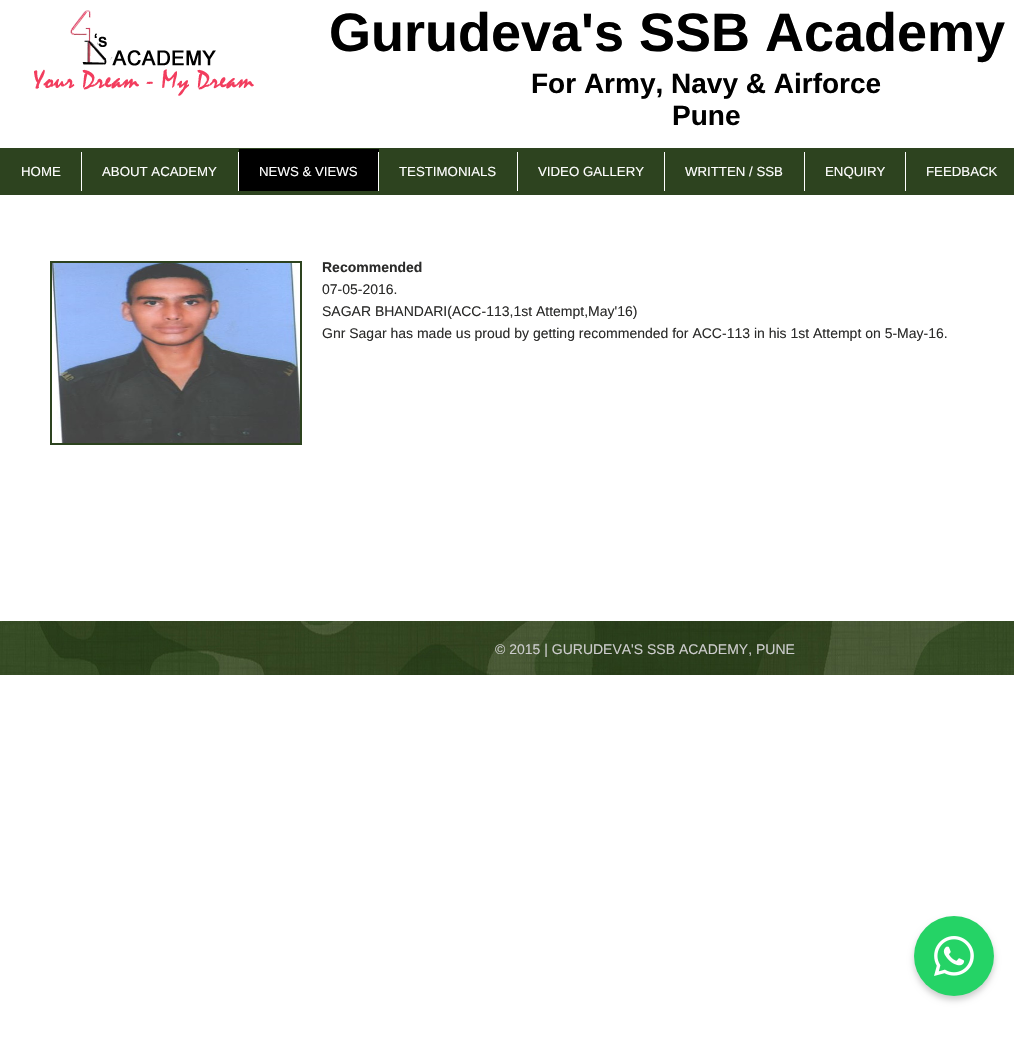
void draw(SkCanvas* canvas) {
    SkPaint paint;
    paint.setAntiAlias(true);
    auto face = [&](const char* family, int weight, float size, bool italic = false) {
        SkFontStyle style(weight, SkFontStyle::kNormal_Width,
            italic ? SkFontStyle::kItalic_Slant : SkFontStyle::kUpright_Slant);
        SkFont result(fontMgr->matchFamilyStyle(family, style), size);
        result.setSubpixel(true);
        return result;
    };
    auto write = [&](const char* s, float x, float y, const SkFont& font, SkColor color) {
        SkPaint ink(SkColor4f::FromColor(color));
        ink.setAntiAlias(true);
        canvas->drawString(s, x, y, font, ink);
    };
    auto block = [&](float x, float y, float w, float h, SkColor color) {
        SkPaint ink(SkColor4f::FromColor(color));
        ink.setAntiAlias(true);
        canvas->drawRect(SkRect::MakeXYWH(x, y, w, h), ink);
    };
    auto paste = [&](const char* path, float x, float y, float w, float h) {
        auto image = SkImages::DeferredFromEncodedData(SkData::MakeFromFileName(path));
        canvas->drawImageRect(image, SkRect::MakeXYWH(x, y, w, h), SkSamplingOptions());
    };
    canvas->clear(SK_ColorWHITE);
    paste("pic1.png", 34, 10, 220, 86);
    auto kFont1 = face("Liberation Sans", 700, 54);
    write("Gurudeva's SSB Academy", 329, 51, kFont1, SK_ColorBLACK);
    auto kFont2 = face("Liberation Sans", 700, 28);
    write("For Army, Navy & Airforce", 531, 93, kFont2, SK_ColorBLACK);
    write("Pune", 672, 125, kFont2, SK_ColorBLACK);
    block(0, 148, 1014, 47, SkColorSetRGB(45, 67, 31));
    block(81, 152, 1, 39, SK_ColorWHITE);
    auto kFont3 = face("Liberation Sans", 400, 13.25f);
    write("HOME", 21, 176, kFont3, SK_ColorWHITE);
    block(238, 152, 1, 39, SK_ColorWHITE);
    write("ABOUT ACADEMY", 102, 176, kFont3, SK_ColorWHITE);
    block(239, 149, 140, 42, SK_ColorBLACK);
    block(378, 152, 1, 39, SK_ColorWHITE);
    write("NEWS & VIEWS", 259, 176, kFont3, SK_ColorWHITE);
    block(517, 152, 1, 39, SK_ColorWHITE);
    write("TESTIMONIALS", 399, 176, kFont3, SK_ColorWHITE);
    block(664, 152, 1, 39, SK_ColorWHITE);
    write("VIDEO GALLERY", 538, 176, kFont3, SK_ColorWHITE);
    block(804, 152, 1, 39, SK_ColorWHITE);
    write("WRITTEN / SSB", 685, 176, kFont3, SK_ColorWHITE);
    block(905, 152, 1, 39, SK_ColorWHITE);
    write("ENQUIRY", 825, 176, kFont3, SK_ColorWHITE);
    write("FEEDBACK", 926, 176, kFont3, SK_ColorWHITE);
    paint.setColor(SkColorSetARGB(51, 0, 0, 0));
    paint.setMaskFilter(SkMaskFilter::MakeBlur(kNormal_SkBlurStyle, 3));
    canvas->drawRoundRect(SkRect::MakeXYWH(914, 920, 80, 80), 40, 40, paint);
    paint.setMaskFilter(nullptr);
    paint.setColor(SkColorSetRGB(37, 211, 102));
    canvas->drawCircle(954, 956, 40, paint);
    paste("pic2.png", 934, 936, 40, 40);
    paint.setStyle(SkPaint::kStroke_Style);
    paint.setStrokeWidth(2);
    paint.setColor(SkColorSetRGB(45, 67, 31));
    canvas->drawRect(SkRect::MakeXYWH(51, 262, 250, 182), paint);
    paste("pic3.png", 52, 263, 248, 180);
    auto kFont4 = face("Liberation Sans", 700, 14);
    write("Recommended", 322, 272, kFont4, SkColorSetRGB(43, 43, 42));
    auto kFont5 = face("Liberation Sans", 400, 14);
    write("07-05-2016.", 322, 294, kFont5, SkColorSetRGB(43, 43, 42));
    write("SAGAR BHANDARI(ACC-113,1st Attempt,May'16)", 322, 316, kFont5, SkColorSetRGB(43, 43, 42));
    write("Gnr Sagar has made us proud by getting recommended for ACC-113 in his 1st Attempt on 5-May-16.", 322, 338, kFont5, SkColorSetRGB(43, 43, 42));
    paste("pic4.png", 0, 621, 1014, 54);
    write("© 2015 | GURUDEVA'S SSB ACADEMY, PUNE", 495, 654, kFont5, SkColorSetRGB(204, 204, 204));
}
